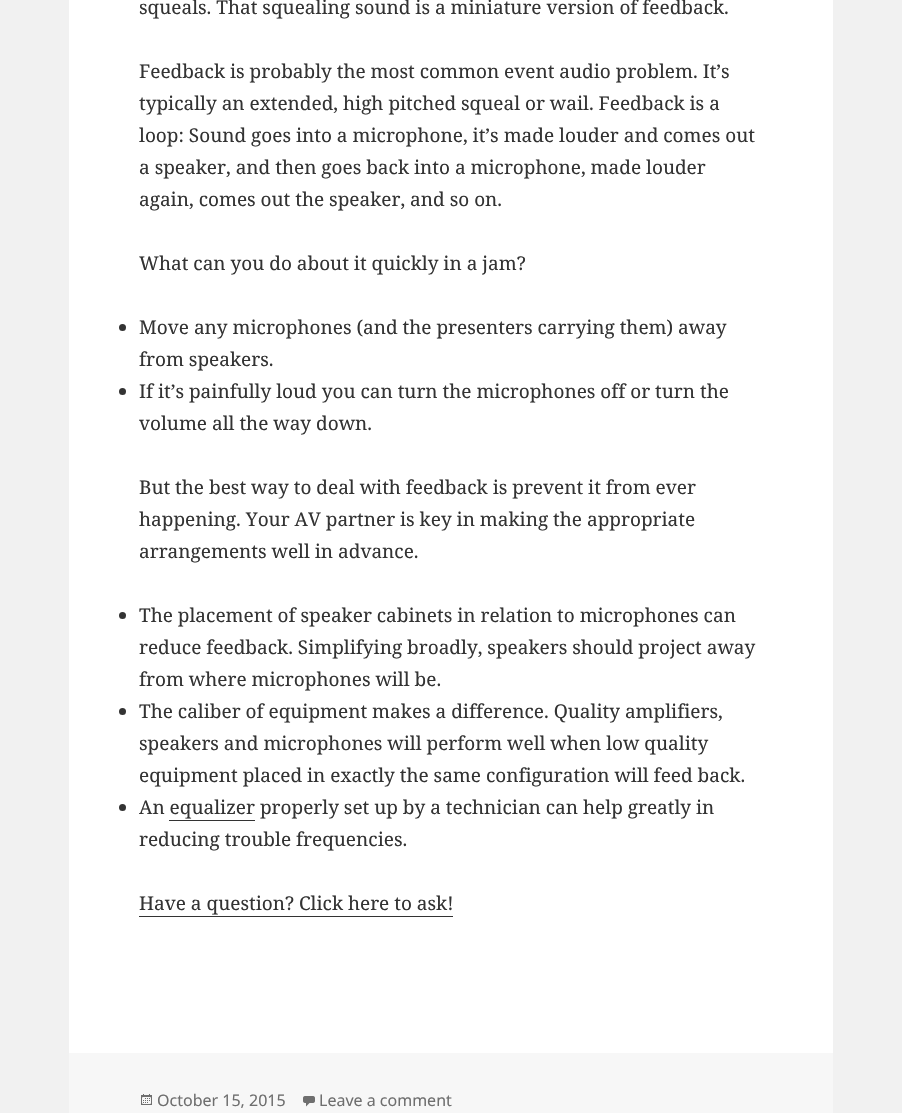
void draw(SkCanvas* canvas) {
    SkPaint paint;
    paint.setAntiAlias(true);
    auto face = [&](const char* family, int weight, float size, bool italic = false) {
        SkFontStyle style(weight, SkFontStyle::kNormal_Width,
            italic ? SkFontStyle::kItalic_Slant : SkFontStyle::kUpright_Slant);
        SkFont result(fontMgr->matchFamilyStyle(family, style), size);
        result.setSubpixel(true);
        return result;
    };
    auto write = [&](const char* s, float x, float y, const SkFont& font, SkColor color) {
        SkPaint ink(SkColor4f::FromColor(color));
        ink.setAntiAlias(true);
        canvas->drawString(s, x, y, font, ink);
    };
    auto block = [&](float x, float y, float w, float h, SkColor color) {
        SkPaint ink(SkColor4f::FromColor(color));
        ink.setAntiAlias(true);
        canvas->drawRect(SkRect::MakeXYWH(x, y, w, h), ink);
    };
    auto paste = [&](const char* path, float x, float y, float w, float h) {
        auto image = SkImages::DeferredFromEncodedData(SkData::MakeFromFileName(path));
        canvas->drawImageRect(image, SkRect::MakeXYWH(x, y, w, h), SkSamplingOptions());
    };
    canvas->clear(SkColorSetRGB(241, 241, 241));
    block(69, 0, 764, 1053, SK_ColorWHITE);
    auto kFont1 = face("Noto Serif", 400, 19);
    write("squeals. That squealing sound is a miniature version of feedback.", 139, 14, kFont1, SkColorSetRGB(51, 51, 51));
    write("Feedback is probably the most common event audio problem. It’s", 139, 78, kFont1, SkColorSetRGB(51, 51, 51));
    write("typically an extended, high pitched squeal or wail. Feedback is a", 139, 110, kFont1, SkColorSetRGB(51, 51, 51));
    write("loop: Sound goes into a microphone, it’s made louder and comes out", 139, 142, kFont1, SkColorSetRGB(51, 51, 51));
    write("a speaker, and then goes back into a microphone, made louder", 139, 174, kFont1, SkColorSetRGB(51, 51, 51));
    write("again, comes out the speaker, and so on.", 139, 206, kFont1, SkColorSetRGB(51, 51, 51));
    write("What can you do about it quickly in a jam?", 139, 270, kFont1, SkColorSetRGB(51, 51, 51));
    paint.setColor(SkColorSetRGB(51, 51, 51));
    canvas->drawCircle(122.5f, 327.5f, 3.5f, paint);
    write("Move any microphones (and the presenters carrying them) away", 139, 334, kFont1, SkColorSetRGB(51, 51, 51));
    write("from speakers.", 139, 366, kFont1, SkColorSetRGB(51, 51, 51));
    canvas->drawCircle(122.5f, 391.5f, 3.5f, paint);
    write("If it’s painfully loud you can turn the microphones off or turn the", 139, 398, kFont1, SkColorSetRGB(51, 51, 51));
    write("volume all the way down.", 139, 430, kFont1, SkColorSetRGB(51, 51, 51));
    write("But the best way to deal with feedback is prevent it from ever", 139, 494, kFont1, SkColorSetRGB(51, 51, 51));
    write("happening. Your AV partner is key in making the appropriate", 139, 526, kFont1, SkColorSetRGB(51, 51, 51));
    write("arrangements well in advance.", 139, 558, kFont1, SkColorSetRGB(51, 51, 51));
    canvas->drawCircle(122.5f, 615.5f, 3.5f, paint);
    write("The placement of speaker cabinets in relation to microphones can", 139, 622, kFont1, SkColorSetRGB(51, 51, 51));
    write("reduce feedback. Simplifying broadly, speakers should project away", 139, 654, kFont1, SkColorSetRGB(51, 51, 51));
    write("from where microphones will be.", 139, 686, kFont1, SkColorSetRGB(51, 51, 51));
    canvas->drawCircle(122.5f, 711.5f, 3.5f, paint);
    write("The caliber of equipment makes a difference. Quality amplifiers,", 139, 718, kFont1, SkColorSetRGB(51, 51, 51));
    write("speakers and microphones will perform well when low quality", 139, 750, kFont1, SkColorSetRGB(51, 51, 51));
    write("equipment placed in exactly the same configuration will feed back.", 139, 782, kFont1, SkColorSetRGB(51, 51, 51));
    canvas->drawCircle(122.5f, 807.5f, 3.5f, paint);
    write("An equalizer properly set up by a technician can help greatly in", 139, 814, kFont1, SkColorSetRGB(51, 51, 51));
    block(169, 820, 86, 1, SkColorSetRGB(51, 51, 51));
    write("reducing trouble frequencies.", 139, 846, kFont1, SkColorSetRGB(51, 51, 51));
    write("Have a question? Click here to ask!", 139, 910, kFont1, SkColorSetRGB(51, 51, 51));
    block(139, 916, 314, 1, SkColorSetRGB(51, 51, 51));
    block(69, 1053, 764, 60, SkColorSetRGB(247, 247, 247));
    paste("pic1.png", 141, 1094, 11, 11);
    auto kFont2 = face("Noto Sans", 400, 16);
    write("October 15, 2015", 157, 1106, kFont2, SkColorSetRGB(110, 110, 110));
    paste("pic2.png", 303, 1096, 12, 11);
    write("Leave a comment", 319, 1106, kFont2, SkColorSetRGB(110, 110, 110));
}
